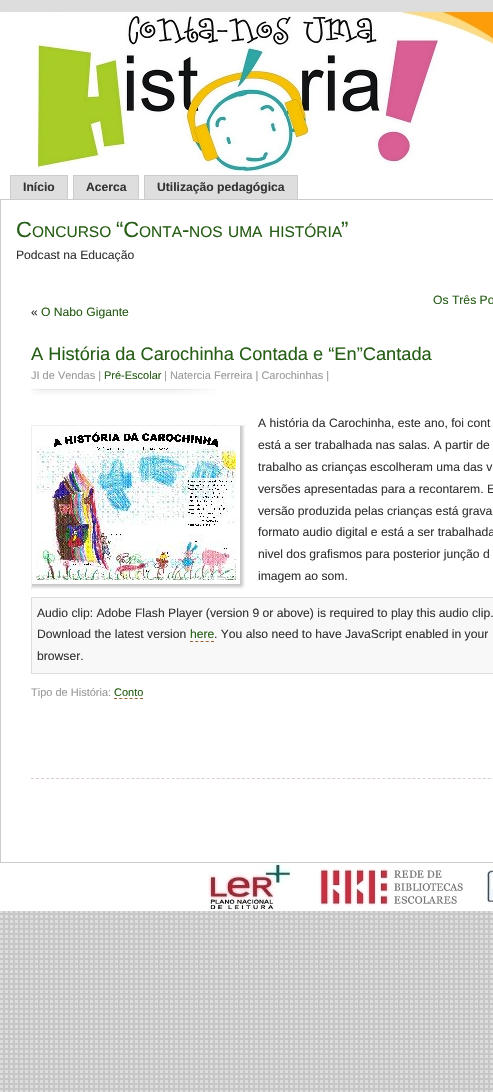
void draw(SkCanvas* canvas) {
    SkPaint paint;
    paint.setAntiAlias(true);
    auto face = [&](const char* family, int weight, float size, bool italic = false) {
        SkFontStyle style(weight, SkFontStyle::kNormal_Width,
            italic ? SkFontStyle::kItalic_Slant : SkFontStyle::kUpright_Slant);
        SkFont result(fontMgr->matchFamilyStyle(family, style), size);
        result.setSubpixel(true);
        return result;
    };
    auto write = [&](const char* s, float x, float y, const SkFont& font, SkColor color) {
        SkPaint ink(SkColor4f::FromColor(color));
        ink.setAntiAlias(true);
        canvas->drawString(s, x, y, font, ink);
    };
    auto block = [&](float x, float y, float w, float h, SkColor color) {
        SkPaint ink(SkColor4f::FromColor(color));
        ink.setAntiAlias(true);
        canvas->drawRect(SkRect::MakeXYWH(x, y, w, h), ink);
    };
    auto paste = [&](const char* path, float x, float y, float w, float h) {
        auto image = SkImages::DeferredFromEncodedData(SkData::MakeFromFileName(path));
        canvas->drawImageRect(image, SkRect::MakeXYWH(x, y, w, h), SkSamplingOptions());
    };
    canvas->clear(SK_ColorWHITE);
    paste("pic1.png", 0, 911, 493, 181);
    paste("pic2.png", 0, 0, 493, 175);
    block(11, 176, 56, 23, SkColorSetRGB(222, 222, 222));
    block(10, 175, 58, 1, SkColorSetRGB(204, 204, 204));
    block(67, 175, 1, 24, SkColorSetRGB(204, 204, 204));
    block(10, 175, 1, 24, SkColorSetRGB(204, 204, 204));
    auto kFont1 = face("Liberation Sans", 700, 12.15f);
    write("Início", 23, 191, kFont1, SkColorSetRGB(51, 51, 51));
    block(74, 176, 64, 23, SkColorSetRGB(222, 222, 222));
    block(73, 175, 66, 1, SkColorSetRGB(204, 204, 204));
    block(138, 175, 1, 24, SkColorSetRGB(204, 204, 204));
    block(73, 175, 1, 24, SkColorSetRGB(204, 204, 204));
    write("Acerca", 86, 191, kFont1, SkColorSetRGB(51, 51, 51));
    block(145, 176, 152, 23, SkColorSetRGB(222, 222, 222));
    block(144, 175, 154, 1, SkColorSetRGB(204, 204, 204));
    block(297, 175, 1, 24, SkColorSetRGB(204, 204, 204));
    block(144, 175, 1, 24, SkColorSetRGB(204, 204, 204));
    write("Utilização pedagógica", 157, 191, kFont1, SkColorSetRGB(51, 51, 51));
    paint.setStyle(SkPaint::kStroke_Style);
    paint.setStrokeWidth(1);
    paint.setColor(SkColorSetRGB(204, 204, 204));
    canvas->drawRect(SkRect::MakeXYWH(0.5f, 199.5f, 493, 663), paint);
    auto kFont2 = face("Liberation Sans", 400, 22);
    write("C", 16, 237, kFont2, SkColorSetRGB(38, 94, 21));
    auto kFont3 = face("Liberation Sans", 400, 15.5f);
    write("ONCURSO", 32, 237, kFont3, SkColorSetRGB(38, 94, 21));
    write("“C", 116, 237, kFont2, SkColorSetRGB(38, 94, 21));
    write("ONTA", 139, 237, kFont3, SkColorSetRGB(38, 94, 21));
    write("-", 182, 237, kFont2, SkColorSetRGB(38, 94, 21));
    write("NOS", 189, 237, kFont3, SkColorSetRGB(38, 94, 21));
    write("UMA", 228, 237, kFont3, SkColorSetRGB(38, 94, 21));
    write("HISTÓRIA", 269, 237, kFont3, SkColorSetRGB(38, 94, 21));
    write("”", 341, 237, kFont2, SkColorSetRGB(38, 94, 21));
    auto kFont4 = face("Liberation Sans", 400, 12.15f);
    write("Podcast na Educação", 16, 259, kFont4, SkColorSetRGB(51, 51, 51));
    write("Os Três Po", 433, 304, kFont4, SkColorSetRGB(38, 94, 21));
    write("«", 31, 316, kFont4, SkColorSetRGB(51, 51, 51));
    write("O Nabo Gigante", 41, 316, kFont4, SkColorSetRGB(38, 94, 21));
    paint.setColor(SkColorSetRGB(221, 204, 204));
    paint.setPathEffect(SkDashPathEffect::Make({{3, 2.02f}}, 0));
    canvas->drawPath(SkPathBuilder().moveTo(31, 778.5f).lineTo(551, 778.5f).detach(), paint);
    paint.setPathEffect(nullptr);
    auto kFont5 = face("Liberation Sans", 400, 18.25f);
    write("A História da Carochinha Contada e “En”Cantada", 31, 360, kFont5, SkColorSetRGB(38, 94, 21));
    paste("pic3.png", 31, 388, 184, 7);
    auto kFont6 = face("Liberation Sans", 400, 11);
    write("JI de Vendas |", 31, 379, kFont6, SkColorSetRGB(153, 153, 153));
    write("Pré-Escolar", 104, 379, kFont6, SkColorSetRGB(38, 94, 21));
    write("| Natercia Ferreira | Carochinhas |", 164, 379, kFont6, SkColorSetRGB(153, 153, 153));
    write("A história da Carochinha, este ano, foi cont", 258, 427, kFont4, SkColorSetRGB(51, 51, 51));
    paste("pic4.png", 32, 426, 213, 163);
    block(31, 425, 215, 1, SkColorSetRGB(238, 238, 238));
    block(31, 425, 1, 165, SkColorSetRGB(238, 238, 238));
    write("está a ser trabalhada nas salas. A partir de", 258, 449, kFont4, SkColorSetRGB(51, 51, 51));
    write("trabalho as crianças escolheram uma das v", 258, 471, kFont4, SkColorSetRGB(51, 51, 51));
    write("versões apresentadas para a recontarem. E", 258, 493, kFont4, SkColorSetRGB(51, 51, 51));
    write("versão produzida pelas crianças está grava", 258, 515, kFont4, SkColorSetRGB(51, 51, 51));
    write("formato audio digital e está a ser trabalhada", 258, 536, kFont4, SkColorSetRGB(51, 51, 51));
    write("nivel dos grafismos para posterior junção d", 258, 558, kFont4, SkColorSetRGB(51, 51, 51));
    write("imagem ao som.", 258, 580, kFont4, SkColorSetRGB(51, 51, 51));
    paint.setStyle(SkPaint::kFill_Style);
    paint.setColor(SkColorSetRGB(248, 248, 248));
    canvas->drawRect(SkRect::MakeXYWH(31.5f, 597.5f, 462, 76), paint);
    paint.setStyle(SkPaint::kStroke_Style);
    paint.setColor(SkColorSetRGB(221, 221, 221));
    canvas->drawRect(SkRect::MakeXYWH(31.5f, 597.5f, 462, 76), paint);
    write("Audio clip: Adobe Flash Player (version 9 or above) is required to play this audio clip.", 37, 617, kFont4, SkColorSetRGB(51, 51, 51));
    write("Download the latest version", 37, 638, kFont4, SkColorSetRGB(51, 51, 51));
    write("here", 190, 638, kFont4, SkColorSetRGB(38, 94, 21));
    paint.setColor(SkColorSetRGB(153, 102, 51));
    paint.setPathEffect(SkDashPathEffect::Make({{3, 2.25f}}, 0));
    canvas->drawPath(SkPathBuilder().moveTo(190, 641.5f).lineTo(214, 641.5f).detach(), paint);
    paint.setPathEffect(nullptr);
    write(". You also need to have JavaScript enabled in your", 214, 638, kFont4, SkColorSetRGB(51, 51, 51));
    write("browser.", 37, 660, kFont4, SkColorSetRGB(51, 51, 51));
    write("Tipo de História:", 31, 696, kFont6, SkColorSetRGB(153, 153, 153));
    write("Conto", 114, 696, kFont6, SkColorSetRGB(38, 94, 21));
    paint.setPathEffect(SkDashPathEffect::Make({{3, 2.2f}}, 0));
    canvas->drawPath(SkPathBuilder().moveTo(114, 698.5f).lineTo(143, 698.5f).detach(), paint);
    paint.setPathEffect(nullptr);
    paste("pic5.png", 208, 863, 285, 48);
}
